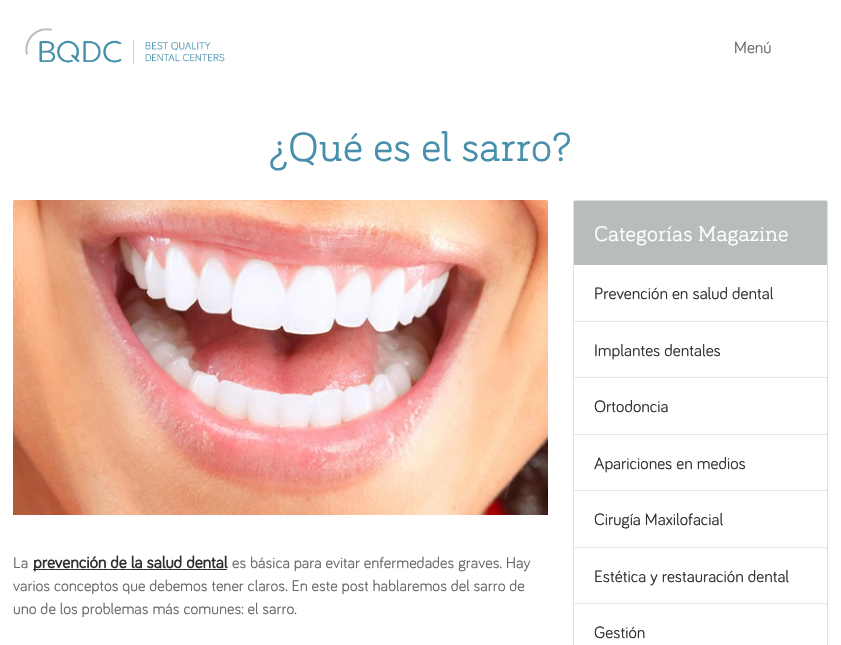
void draw(SkCanvas* canvas) {
    SkPaint paint;
    paint.setAntiAlias(true);
    auto face = [&](const char* family, int weight, float size, bool italic = false) {
        SkFontStyle style(weight, SkFontStyle::kNormal_Width,
            italic ? SkFontStyle::kItalic_Slant : SkFontStyle::kUpright_Slant);
        SkFont result(fontMgr->matchFamilyStyle(family, style), size);
        result.setSubpixel(true);
        return result;
    };
    auto write = [&](const char* s, float x, float y, const SkFont& font, SkColor color) {
        SkPaint ink(SkColor4f::FromColor(color));
        ink.setAntiAlias(true);
        canvas->drawString(s, x, y, font, ink);
    };
    auto block = [&](float x, float y, float w, float h, SkColor color) {
        SkPaint ink(SkColor4f::FromColor(color));
        ink.setAntiAlias(true);
        canvas->drawRect(SkRect::MakeXYWH(x, y, w, h), ink);
    };
    auto paste = [&](const char* path, float x, float y, float w, float h) {
        auto image = SkImages::DeferredFromEncodedData(SkData::MakeFromFileName(path));
        canvas->drawImageRect(image, SkRect::MakeXYWH(x, y, w, h), SkSamplingOptions());
    };
    canvas->clear(SK_ColorWHITE);
    paste("pic1.png", 25, 28, 200, 36);
    auto kFont1 = face("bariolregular", 400, 17);
    write("Menú", 734, 53, kFont1, SkColorSetRGB(106, 104, 102));
    auto kFont2 = face("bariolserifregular", 400, 42);
    write("¿Qué es el sarro?", 269, 161, kFont2, SkColorSetRGB(71, 143, 171));
    paste("pic2.png", 13, 200, 535, 315);
    auto kFont3 = face("bariolregular", 400, 16);
    write("La", 13, 568, kFont3, SkColorSetRGB(106, 104, 102));
    block(33, 569, 194, 1, SkColorSetRGB(48, 48, 48));
    auto kFont4 = face("bariolregular", 700, 17);
    write("prevención de la salud dental", 33, 568, kFont4, SkColorSetRGB(48, 48, 48));
    write("es básica para evitar enfermedades graves. Hay", 232, 568, kFont3, SkColorSetRGB(106, 104, 102));
    write("varios conceptos que debemos tener claros. En este post hablaremos del sarro de", 13, 591, kFont3, SkColorSetRGB(106, 104, 102));
    write("uno de los problemas más comunes: el sarro.", 13, 614, kFont3, SkColorSetRGB(106, 104, 102));
    paint.setStyle(SkPaint::kStroke_Style);
    paint.setStrokeWidth(1);
    paint.setColor(SkColorSetRGB(224, 224, 224));
    canvas->drawRoundRect(SkRect::MakeXYWH(573.5f, 200.5f, 254, 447), 1.5f, 1.5f, paint);
    paint.setStyle(SkPaint::kFill_Style);
    paint.setColor(SkColorSetRGB(184, 189, 186));
    canvas->drawPath(SkPathBuilder().moveTo(575, 201).lineTo(826, 201).cubicTo(826.5f, 201, 827, 201.5f, 827, 202).lineTo(827, 265).lineTo(574, 265).lineTo(574, 202).cubicTo(574, 201.5f, 574.5f, 201, 575, 201).close().detach(), paint);
    auto kFont5 = face("bariolserifregular", 400, 22);
    write("Categorías Magazine", 594, 241, kFont5, SK_ColorWHITE);
    block(574, 321, 253, 1, SkColorSetRGB(229, 229, 229));
    write("Prevención en salud dental", 594, 299, kFont1, SkColorSetRGB(48, 48, 48));
    block(574, 377, 253, 1, SkColorSetRGB(229, 229, 229));
    write("Implantes dentales", 594, 356, kFont1, SkColorSetRGB(48, 48, 48));
    block(574, 434, 253, 1, SkColorSetRGB(229, 229, 229));
    write("Ortodoncia", 594, 412, kFont1, SkColorSetRGB(48, 48, 48));
    block(574, 490, 253, 1, SkColorSetRGB(229, 229, 229));
    write("Apariciones en medios", 594, 469, kFont1, SkColorSetRGB(48, 48, 48));
    block(574, 547, 253, 1, SkColorSetRGB(229, 229, 229));
    write("Cirugía Maxilofacial", 594, 525, kFont1, SkColorSetRGB(48, 48, 48));
    block(574, 603, 253, 1, SkColorSetRGB(229, 229, 229));
    write("Estética y restauración dental", 594, 582, kFont1, SkColorSetRGB(48, 48, 48));
    write("Gestión", 594, 638, kFont1, SkColorSetRGB(48, 48, 48));
}
